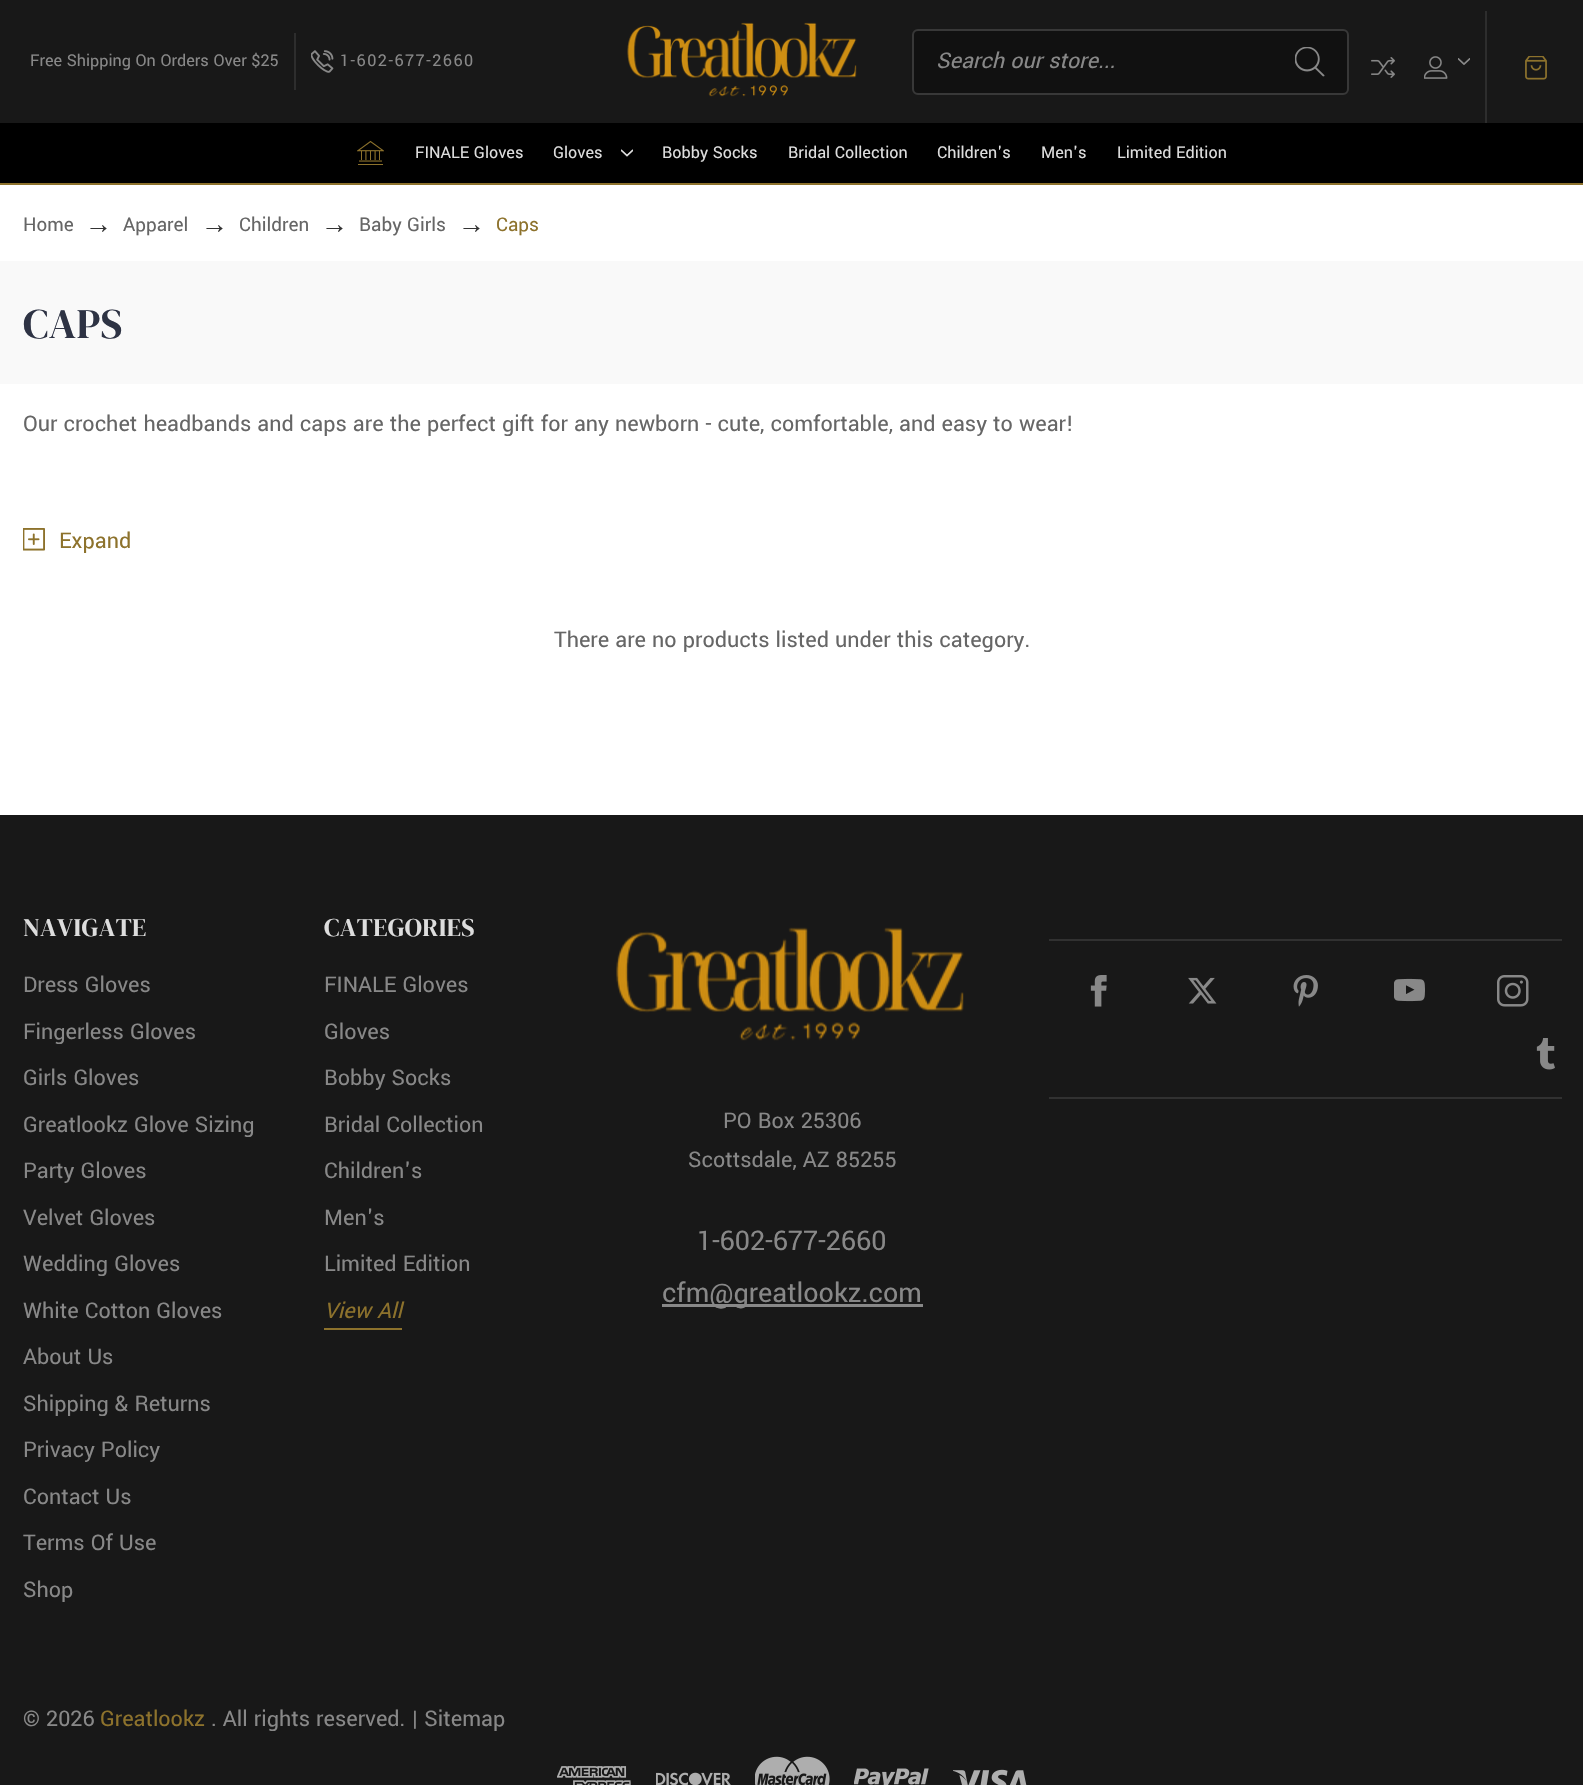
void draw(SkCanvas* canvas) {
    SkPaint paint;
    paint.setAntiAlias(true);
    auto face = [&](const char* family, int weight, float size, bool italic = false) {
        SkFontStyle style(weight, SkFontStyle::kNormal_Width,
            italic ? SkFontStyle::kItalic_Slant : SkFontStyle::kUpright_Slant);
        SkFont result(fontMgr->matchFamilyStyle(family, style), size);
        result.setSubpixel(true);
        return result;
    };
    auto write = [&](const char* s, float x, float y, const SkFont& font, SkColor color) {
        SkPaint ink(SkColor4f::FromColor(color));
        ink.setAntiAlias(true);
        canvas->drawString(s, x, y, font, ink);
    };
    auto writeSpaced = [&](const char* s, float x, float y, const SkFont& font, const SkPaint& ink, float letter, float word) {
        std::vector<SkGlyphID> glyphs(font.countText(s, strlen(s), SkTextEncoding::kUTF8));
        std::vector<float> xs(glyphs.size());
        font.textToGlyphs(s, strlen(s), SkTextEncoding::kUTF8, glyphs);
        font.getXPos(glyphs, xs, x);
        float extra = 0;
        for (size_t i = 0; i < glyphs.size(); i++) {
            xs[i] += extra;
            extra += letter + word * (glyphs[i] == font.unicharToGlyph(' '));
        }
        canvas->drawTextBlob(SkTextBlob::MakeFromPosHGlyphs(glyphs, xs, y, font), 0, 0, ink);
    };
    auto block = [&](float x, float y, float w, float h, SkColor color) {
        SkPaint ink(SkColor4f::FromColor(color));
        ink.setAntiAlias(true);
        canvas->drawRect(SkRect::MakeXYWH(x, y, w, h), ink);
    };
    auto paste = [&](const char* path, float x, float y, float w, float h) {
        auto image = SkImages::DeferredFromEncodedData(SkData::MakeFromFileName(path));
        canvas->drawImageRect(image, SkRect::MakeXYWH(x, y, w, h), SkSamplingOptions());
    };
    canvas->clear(SK_ColorWHITE);
    block(0, 0, 1583, 123, SkColorSetRGB(24, 24, 24));
    block(0, 183, 1583, 2, SkColorSetRGB(141, 114, 44));
    block(294, 33, 2, 57, SkColorSetRGB(45, 45, 45));
    auto kFont1 = face("Yantramanav", 400, 18);
    write("Free Shipping On Orders Over $25", 30, 66, kFont1, SkColorSetRGB(136, 136, 136));
    paste("pic1.png", 311, 50, 23, 23);
    paint.setColor(SkColorSetRGB(136, 136, 136));
    writeSpaced("1-602-677-2660", 340, 66, kFont1, paint, 1.5f, 0);
    paste("pic2.png", 627, 22, 230, 75);
    paint.setColor(SkColorSetRGB(17, 17, 17));
    canvas->drawRoundRect(SkRect::MakeXYWH(913, 30, 435, 64), 5, 5, paint);
    paint.setStyle(SkPaint::kStroke_Style);
    paint.setStrokeWidth(2);
    paint.setColor(SkColorSetRGB(56, 56, 56));
    canvas->drawRoundRect(SkRect::MakeXYWH(913, 30, 435, 64), 5, 5, paint);
    auto kFont2 = face("Yantramanav", 400, 24, true);
    write("Search our store...", 936, 68, kFont2, SkColorSetRGB(136, 136, 136));
    paste("pic3.png", 1295, 47, 30, 30);
    paste("pic4.png", 1371, 57, 24, 21);
    paste("pic5.png", 1424, 56, 24, 23);
    paste("pic6.png", 1458, 58, 12, 7);
    block(1485, 11, 2, 112, SkColorSetRGB(45, 45, 45));
    paste("pic7.png", 1525, 56, 22, 24);
    block(0, 123, 1583, 60, SK_ColorBLACK);
    paste("pic8.png", 357, 140, 27, 25);
    write("FINALE Gloves", 415, 158, kFont1, SkColorSetRGB(221, 221, 221));
    write("Gloves", 553, 158, kFont1, SkColorSetRGB(221, 221, 221));
    paste("pic9.png", 621, 149, 12, 8);
    write("Bobby Socks", 662, 158, kFont1, SkColorSetRGB(221, 221, 221));
    write("Bridal Collection", 788, 158, kFont1, SkColorSetRGB(221, 221, 221));
    write("Children's", 937, 158, kFont1, SkColorSetRGB(221, 221, 221));
    write("Men's", 1041, 158, kFont1, SkColorSetRGB(221, 221, 221));
    write("Limited Edition", 1117, 158, kFont1, SkColorSetRGB(221, 221, 221));
    auto kFont3 = face("Yantramanav", 400, 21);
    write("Home", 23, 231, kFont3, SkColorSetRGB(102, 102, 102));
    auto kFont4 = face("Liberation Sans", 400, 27);
    write("→", 85, 233, kFont4, SkColorSetRGB(51, 51, 51));
    write("Apparel", 123, 231, kFont3, SkColorSetRGB(102, 102, 102));
    write("→", 201, 233, kFont4, SkColorSetRGB(51, 51, 51));
    write("Children", 239, 231, kFont3, SkColorSetRGB(102, 102, 102));
    write("→", 321, 233, kFont4, SkColorSetRGB(51, 51, 51));
    write("Baby Girls", 359, 231, kFont3, SkColorSetRGB(102, 102, 102));
    write("→", 458, 233, kFont4, SkColorSetRGB(51, 51, 51));
    write("Caps", 496, 231, kFont3, SkColorSetRGB(141, 114, 44));
    block(0, 261, 1583, 123, SkColorSetRGB(249, 249, 249));
    auto kFont5 = face("DM Serif Display", 400, 42);
    paint.setStyle(SkPaint::kFill_Style);
    paint.setColor(SkColorSetRGB(46, 51, 68));
    writeSpaced("CAPS", 23, 338, kFont5, paint, 0.4f, 0);
    auto kFont6 = face("Yantramanav", 400, 24);
    write("Our crochet headbands and caps are the perfect gift for any newborn - cute, comfortable, and easy to wear!", 23, 431, kFont6, SkColorSetRGB(102, 102, 102));
    paste("pic10.png", 23, 528, 22, 23);
    write("Expand", 59, 548, kFont6, SkColorSetRGB(141, 114, 44));
    write("There are no products listed under this category.", 554, 647, kFont6, SkColorSetRGB(102, 102, 102));
    block(0, 815, 1583, 970, SkColorSetRGB(24, 24, 24));
    auto kFont7 = face("DM Serif Display", 400, 25.5f);
    paint.setColor(SkColorSetRGB(221, 221, 221));
    writeSpaced("NAVIGATE", 23, 936, kFont7, paint, 0.4f, 0);
    write("Dress Gloves", 23, 992, kFont6, SkColorSetRGB(136, 136, 136));
    write("Fingerless Gloves", 23, 1039, kFont6, SkColorSetRGB(136, 136, 136));
    write("Girls Gloves", 23, 1085, kFont6, SkColorSetRGB(136, 136, 136));
    write("Greatlookz Glove Sizing", 23, 1132, kFont6, SkColorSetRGB(136, 136, 136));
    write("Party Gloves", 23, 1178, kFont6, SkColorSetRGB(136, 136, 136));
    write("Velvet Gloves", 23, 1225, kFont6, SkColorSetRGB(136, 136, 136));
    write("Wedding Gloves", 23, 1271, kFont6, SkColorSetRGB(136, 136, 136));
    write("White Cotton Gloves", 23, 1318, kFont6, SkColorSetRGB(136, 136, 136));
    write("About Us", 23, 1364, kFont6, SkColorSetRGB(136, 136, 136));
    write("Shipping & Returns", 23, 1411, kFont6, SkColorSetRGB(136, 136, 136));
    write("Privacy Policy", 23, 1457, kFont6, SkColorSetRGB(136, 136, 136));
    write("Contact Us", 23, 1504, kFont6, SkColorSetRGB(136, 136, 136));
    write("Terms Of Use", 23, 1550, kFont6, SkColorSetRGB(136, 136, 136));
    write("Shop", 23, 1597, kFont6, SkColorSetRGB(136, 136, 136));
    writeSpaced("CATEGORIES", 324, 936, kFont7, paint, 0.4f, 0);
    write("FINALE Gloves", 324, 992, kFont6, SkColorSetRGB(136, 136, 136));
    write("Gloves", 324, 1039, kFont6, SkColorSetRGB(136, 136, 136));
    write("Bobby Socks", 324, 1085, kFont6, SkColorSetRGB(136, 136, 136));
    write("Bridal Collection", 324, 1132, kFont6, SkColorSetRGB(136, 136, 136));
    write("Children's", 324, 1178, kFont6, SkColorSetRGB(136, 136, 136));
    write("Men's", 324, 1225, kFont6, SkColorSetRGB(136, 136, 136));
    write("Limited Edition", 324, 1271, kFont6, SkColorSetRGB(136, 136, 136));
    write("View All", 324, 1318, kFont2, SkColorSetRGB(141, 114, 44));
    block(324, 1328, 78, 2, SkColorSetRGB(141, 114, 44));
    block(1049, 939, 513, 2, SkColorSetRGB(49, 49, 49));
    block(1049, 1097, 513, 2, SkColorSetRGB(49, 49, 49));
    paste("pic11.png", 1090, 975, 17, 32);
    paste("pic12.png", 1188, 977, 29, 27);
    paste("pic13.png", 1293, 975, 25, 32);
    paste("pic14.png", 1394, 978, 31, 24);
    paste("pic15.png", 1497, 975, 32, 32);
    paste("pic16.png", 1536, 1038, 19, 32);
    paste("pic17.png", 616, 927, 348, 114);
    write("PO Box 25306", 723, 1128, kFont6, SkColorSetRGB(136, 136, 136));
    write("Scottsdale, AZ 85255", 688, 1167, kFont6, SkColorSetRGB(136, 136, 136));
    auto kFont8 = face("Yantramanav", 400, 30);
    write("1-602-677-2660", 697, 1250, kFont8, SkColorSetRGB(136, 136, 136));
    block(662, 1304, 261, 3, SkColorSetRGB(136, 136, 136));
    write("cfm@greatlookz.com", 662, 1302, kFont8, SkColorSetRGB(136, 136, 136));
    write("© 2026", 23, 1726, kFont6, SkColorSetRGB(136, 136, 136));
    write("Greatlookz", 100, 1726, kFont6, SkColorSetRGB(141, 114, 44));
    write(". All rights reserved. | Sitemap", 211, 1726, kFont6, SkColorSetRGB(136, 136, 136));
    paste("pic18.png", 557, 1766, 74, 19);
    paste("pic19.png", 656, 1772, 75, 13);
    paste("pic20.png", 755, 1756, 75, 29);
    paste("pic21.png", 854, 1768, 75, 17);
    paste("pic22.png", 953, 1769, 74, 16);
}
